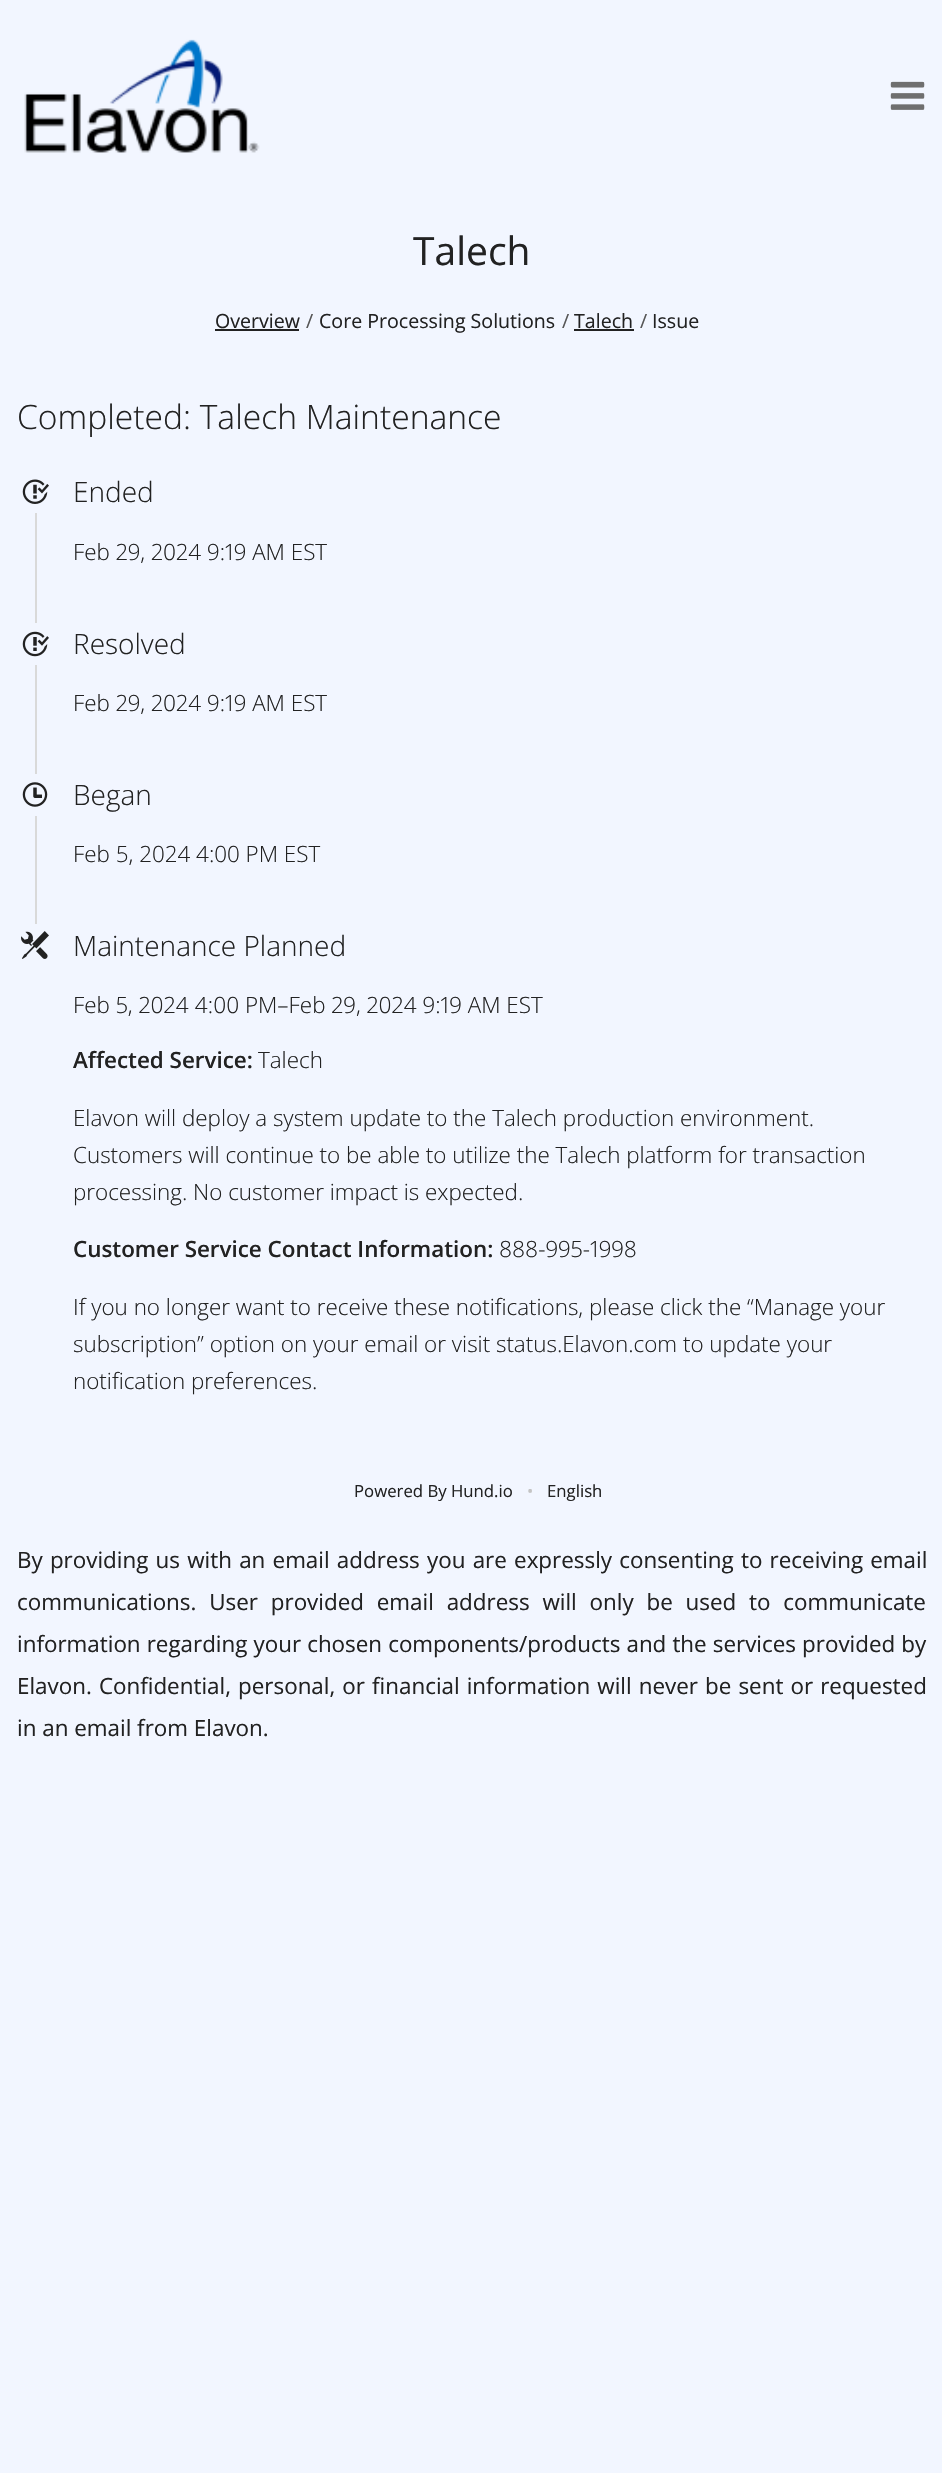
void draw(SkCanvas* canvas) {
    SkPaint paint;
    paint.setAntiAlias(true);
    auto face = [&](const char* family, int weight, float size, bool italic = false) {
        SkFontStyle style(weight, SkFontStyle::kNormal_Width,
            italic ? SkFontStyle::kItalic_Slant : SkFontStyle::kUpright_Slant);
        SkFont result(fontMgr->matchFamilyStyle(family, style), size);
        result.setSubpixel(true);
        return result;
    };
    auto write = [&](const char* s, float x, float y, const SkFont& font, SkColor color) {
        SkPaint ink(SkColor4f::FromColor(color));
        ink.setAntiAlias(true);
        canvas->drawString(s, x, y, font, ink);
    };
    auto writeSpaced = [&](const char* s, float x, float y, const SkFont& font, const SkPaint& ink, float letter, float word) {
        std::vector<SkGlyphID> glyphs(font.countText(s, strlen(s), SkTextEncoding::kUTF8));
        std::vector<float> xs(glyphs.size());
        font.textToGlyphs(s, strlen(s), SkTextEncoding::kUTF8, glyphs);
        font.getXPos(glyphs, xs, x);
        float extra = 0;
        for (size_t i = 0; i < glyphs.size(); i++) {
            xs[i] += extra;
            extra += letter + word * (glyphs[i] == font.unicharToGlyph(' '));
        }
        canvas->drawTextBlob(SkTextBlob::MakeFromPosHGlyphs(glyphs, xs, y, font), 0, 0, ink);
    };
    auto block = [&](float x, float y, float w, float h, SkColor color) {
        SkPaint ink(SkColor4f::FromColor(color));
        ink.setAntiAlias(true);
        canvas->drawRect(SkRect::MakeXYWH(x, y, w, h), ink);
    };
    auto paste = [&](const char* path, float x, float y, float w, float h) {
        auto image = SkImages::DeferredFromEncodedData(SkData::MakeFromFileName(path));
        canvas->drawImageRect(image, SkRect::MakeXYWH(x, y, w, h), SkSamplingOptions());
    };
    canvas->clear(SkColorSetRGB(242, 246, 255));
    paste("pic1.png", 24, 39, 236, 114);
    paste("pic2.png", 890, 81, 35, 29);
    auto kFont1 = face("Open Sans", 400, 39);
    write("Talech", 413, 265, kFont1, SkColorSetRGB(34, 34, 34));
    auto kFont2 = face("Open Sans", 400, 19.6f);
    write("Overview", 215, 328, kFont2, SkColorSetRGB(34, 34, 34));
    block(215, 329, 84, 2, SkColorSetRGB(34, 34, 34));
    write("/", 306, 328, kFont2, SkColorSetRGB(86, 86, 86));
    write("Core Processing Solutions", 319, 328, kFont2, SkColorSetRGB(34, 34, 34));
    write("/", 562, 328, kFont2, SkColorSetRGB(86, 86, 86));
    write("Talech", 574, 328, kFont2, SkColorSetRGB(34, 34, 34));
    block(574, 329, 60, 2, SkColorSetRGB(34, 34, 34));
    write("/", 640, 328, kFont2, SkColorSetRGB(86, 86, 86));
    write("Issue", 652, 328, kFont2, SkColorSetRGB(34, 34, 34));
    auto kFont3 = face("Open Sans", 300, 33.6f);
    write("Completed: Talech Maintenance", 17, 429, kFont3, SkColorSetRGB(34, 34, 34));
    block(35, 513, 2, 411, SkColorSetRGB(217, 217, 217));
    paste("pic3.png", 22, 479, 27, 25);
    auto kFont4 = face("Open Sans", 300, 28);
    write("Ended", 73, 502, kFont4, SkColorSetRGB(34, 34, 34));
    auto kFont5 = face("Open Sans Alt", 300, 22.4f);
    write("Feb 29, 2024 9:19 AM EST", 73, 560, kFont5, SkColorSetRGB(34, 34, 34));
    block(35, 623, 2, 42, SkColorSetRGB(242, 246, 255));
    paste("pic4.png", 22, 631, 27, 26);
    write("Resolved", 73, 654, kFont4, SkColorSetRGB(34, 34, 34));
    write("Feb 29, 2024 9:19 AM EST", 73, 711, kFont5, SkColorSetRGB(34, 34, 34));
    block(35, 774, 2, 42, SkColorSetRGB(242, 246, 255));
    paste("pic5.png", 22, 782, 26, 25);
    write("Began", 73, 805, kFont4, SkColorSetRGB(34, 34, 34));
    auto kFont6 = face("Open Sans", 300, 22.4f);
    write("Feb 5, 2024 4:00 PM EST", 73, 862, kFont6, SkColorSetRGB(34, 34, 34));
    paste("pic6.png", 21, 931, 28, 28);
    write("Maintenance Planned", 73, 956, kFont4, SkColorSetRGB(34, 34, 34));
    write("Feb 5, 2024 4:00 PM–Feb 29, 2024 9:19 AM EST", 73, 1013, kFont5, SkColorSetRGB(34, 34, 34));
    auto kFont7 = face("Open Sans", 600, 22.4f);
    write("Affected Service:", 73, 1068, kFont7, SkColorSetRGB(34, 34, 34));
    write("Talech", 258, 1068, kFont6, SkColorSetRGB(34, 34, 34));
    write("Elavon will deploy a system update to the Talech production environment.", 73, 1126, kFont6, SkColorSetRGB(34, 34, 34));
    write("Customers will continue to be able to utilize the Talech platform for transaction", 73, 1163, kFont6, SkColorSetRGB(34, 34, 34));
    write("processing. No customer impact is expected.", 73, 1200, kFont6, SkColorSetRGB(34, 34, 34));
    write("Customer Service Contact Information:", 73, 1257, kFont7, SkColorSetRGB(34, 34, 34));
    write("888-995-1998", 499, 1257, kFont5, SkColorSetRGB(34, 34, 34));
    write("If you no longer want to receive these notifications, please click the “Manage your", 73, 1315, kFont6, SkColorSetRGB(34, 34, 34));
    write("subscription” option on your email or visit status.Elavon.com to update your", 73, 1352, kFont6, SkColorSetRGB(34, 34, 34));
    write("notification preferences.", 73, 1389, kFont6, SkColorSetRGB(34, 34, 34));
    auto kFont8 = face("Open Sans", 400, 16.75f);
    write("Powered By Hund.io", 354, 1497, kFont8, SkColorSetRGB(34, 34, 34));
    write("•", 527, 1497, kFont8, SkColorSetRGB(196, 196, 196));
    write("English", 547, 1497, kFont8, SkColorSetRGB(34, 34, 34));
    auto kFont9 = face("Open Sans", 400, 22.4f);
    paint.setColor(SkColorSetRGB(34, 34, 34));
    writeSpaced("By providing us with an email address you are expressly consenting to receiving email", 17, 1568, kFont9, paint, 0, 1.4f);
    writeSpaced("communications. User provided email address will only be used to communicate", 17, 1610, kFont9, paint, 0, 7);
    writeSpaced("information regarding your chosen components/products and the services provided by", 17, 1652, kFont9, paint, 0, 0.25f);
    writeSpaced("Elavon. Confidential, personal, or financial information will never be sent or requested", 17, 1694, kFont9, paint, 0, 1.25f);
    write("in an email from Elavon.", 17, 1736, kFont9, SkColorSetRGB(34, 34, 34));
}
